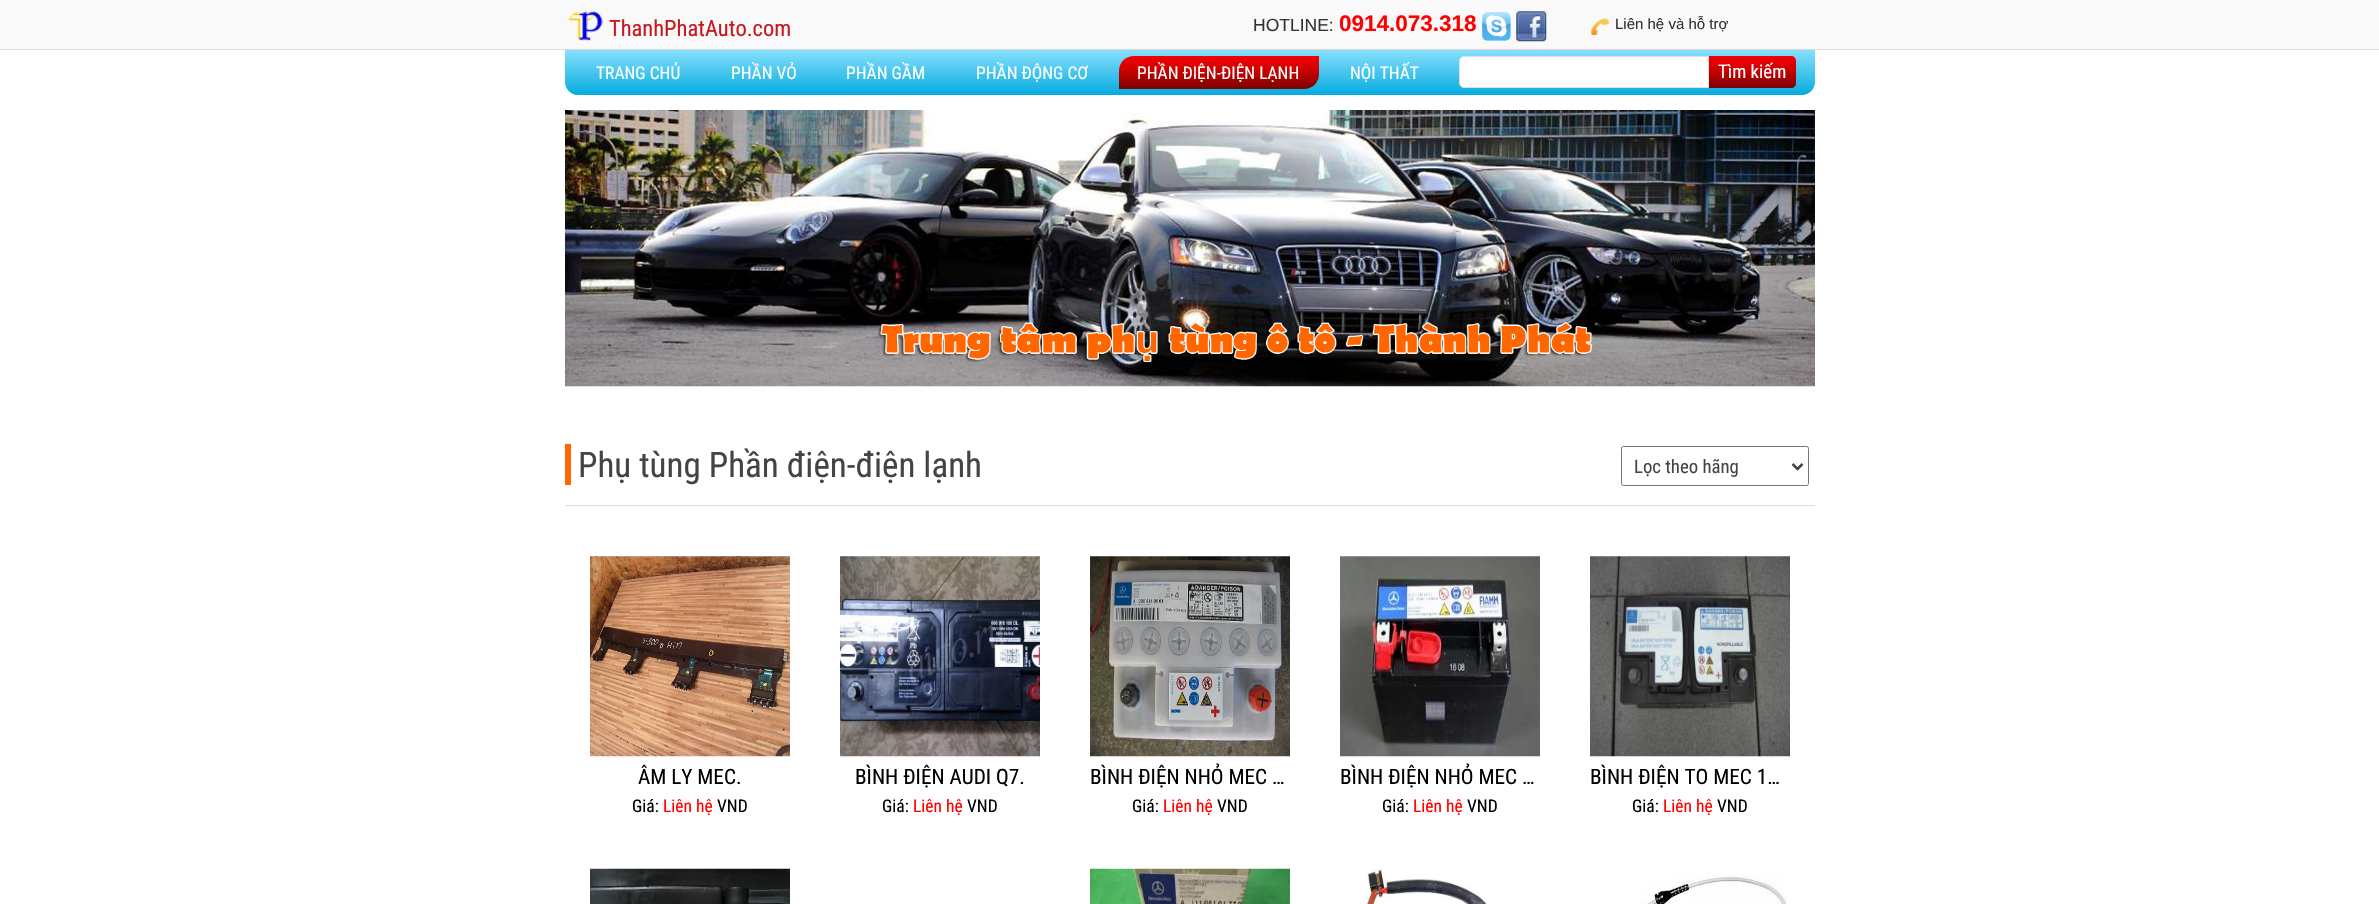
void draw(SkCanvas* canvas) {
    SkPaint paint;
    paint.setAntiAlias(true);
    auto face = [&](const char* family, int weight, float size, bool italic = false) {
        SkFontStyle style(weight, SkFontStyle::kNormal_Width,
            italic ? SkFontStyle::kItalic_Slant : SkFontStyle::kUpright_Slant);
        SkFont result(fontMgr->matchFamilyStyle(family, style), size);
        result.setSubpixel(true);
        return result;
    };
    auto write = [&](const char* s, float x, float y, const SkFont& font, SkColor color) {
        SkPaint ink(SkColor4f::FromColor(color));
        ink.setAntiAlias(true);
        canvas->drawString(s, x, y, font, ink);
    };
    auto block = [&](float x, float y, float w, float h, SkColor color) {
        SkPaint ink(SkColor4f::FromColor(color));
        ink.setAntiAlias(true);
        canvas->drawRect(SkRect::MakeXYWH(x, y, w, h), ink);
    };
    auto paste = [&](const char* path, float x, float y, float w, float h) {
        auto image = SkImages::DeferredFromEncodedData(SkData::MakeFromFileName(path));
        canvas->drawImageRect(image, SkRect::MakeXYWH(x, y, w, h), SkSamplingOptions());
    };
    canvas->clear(SK_ColorWHITE);
    block(0, 0, 2379, 49, SkColorSetRGB(249, 249, 249));
    block(0, 49, 2379, 1, SkColorSetRGB(221, 221, 221));
    paste("pic1.png", 567, 11, 36, 30);
    auto kFont1 = face("Roboto Condensed", 400, 22.5f);
    write("ThanhPhatAuto.com", 609, 36, kFont1, SkColorSetRGB(199, 24, 29));
    auto kFont2 = face("Liberation Sans", 400, 17.5f);
    write("HOTLINE:", 1253, 31, kFont2, SkColorSetRGB(51, 51, 51));
    auto kFont3 = face("Liberation Sans", 700, 22.5f);
    write("0914.073.318", 1339, 31, kFont3, SkColorSetRGB(255, 0, 0));
    paste("pic2.png", 1481, 11, 30, 30);
    paste("pic3.png", 1516, 11, 31, 31);
    paste("pic4.png", 1591, 17, 19, 18);
    auto kFont4 = face("Liberation Sans", 400, 15);
    write("Liên hệ và hỗ trợ", 1615, 29, kFont4, SkColorSetRGB(51, 51, 51));
    {
        const SkColor colors[] = {SkColorSetRGB(135, 224, 253), SkColorSetRGB(83, 203, 241), SkColorSetRGB(5, 171, 224)};
        const float stops[] = {0, 0.4f, 1};
        const SkPoint ends[] = {{1190, 50}, {1190, 95}};
        paint.setShader(SkGradientShader::MakeLinear(ends, colors, stops, 3, SkTileMode::kClamp));
        paint.setAlpha(255);
    }
    canvas->drawPath(SkPathBuilder().moveTo(565, 50).lineTo(1815, 50).lineTo(1815, 82).cubicTo(1815, 89, 1809, 95, 1802, 95).lineTo(578, 95).cubicTo(571, 95, 565, 89, 565, 82).close().detach(), paint);
    auto kFont5 = face("Roboto Condensed", 400, 17.5f);
    write("TRANG CHỦ", 596, 79, kFont5, SK_ColorWHITE);
    write("PHẦN VỎ", 731, 79, kFont5, SK_ColorWHITE);
    write("PHẦN GẦM", 846, 79, kFont5, SK_ColorWHITE);
    write("PHẦN ĐỘNG CƠ", 976, 79, kFont5, SK_ColorWHITE);
    {
        const SkColor colors[] = {SkColorSetRGB(243, 1, 0), SkColorSetRGB(203, 1, 0), SkColorSetRGB(120, 2, 1)};
        const float stops[] = {0, 0.44f, 1};
        const SkPoint ends[] = {{1219, 56}, {1219, 89}};
        paint.setShader(SkGradientShader::MakeLinear(ends, colors, stops, 3, SkTileMode::kClamp));
        paint.setAlpha(255);
    }
    canvas->drawPath(SkPathBuilder().moveTo(1134, 56).lineTo(1319, 56).lineTo(1319, 74).cubicTo(1319, 82.5f, 1312.5f, 89, 1304, 89).lineTo(1119, 89).lineTo(1119, 71).cubicTo(1119, 62.5f, 1125.5f, 56, 1134, 56).close().detach(), paint);
    write("PHẦN ĐIỆN-ĐIỆN LẠNH", 1137, 79, kFont5, SK_ColorWHITE);
    write("NỘI THẤT", 1350, 79, kFont5, SK_ColorWHITE);
    paint.setShader(nullptr);
    paint.setColor(SK_ColorWHITE);
    canvas->drawPath(SkPathBuilder().moveTo(1464, 56.5f).lineTo(1708.5f, 56.5f).lineTo(1708.5f, 87.5f).lineTo(1464, 87.5f).cubicTo(1461.5f, 87.5f, 1459.5f, 85.5f, 1459.5f, 83).lineTo(1459.5f, 61).cubicTo(1459.5f, 58.5f, 1461.5f, 56.5f, 1464, 56.5f).close().detach(), paint);
    paint.setStyle(SkPaint::kStroke_Style);
    paint.setStrokeWidth(1);
    paint.setColor(SkColorSetRGB(221, 221, 221));
    canvas->drawPath(SkPathBuilder().moveTo(1464, 56.5f).lineTo(1708.5f, 56.5f).lineTo(1708.5f, 87.5f).lineTo(1464, 87.5f).cubicTo(1461.5f, 87.5f, 1459.5f, 85.5f, 1459.5f, 83).lineTo(1459.5f, 61).cubicTo(1459.5f, 58.5f, 1461.5f, 56.5f, 1464, 56.5f).close().detach(), paint);
    paint.setStyle(SkPaint::kFill_Style);
    {
        const SkColor colors[] = {SkColorSetRGB(243, 1, 0), SkColorSetRGB(203, 1, 0), SkColorSetRGB(120, 2, 1)};
        const float stops[] = {0, 0.44f, 1};
        const SkPoint ends[] = {{1753, 56}, {1753, 88}};
        paint.setShader(SkGradientShader::MakeLinear(ends, colors, stops, 3, SkTileMode::kClamp));
        paint.setAlpha(255);
    }
    canvas->drawPath(SkPathBuilder().moveTo(1709, 56).lineTo(1791, 56).cubicTo(1794, 56, 1796, 58, 1796, 61).lineTo(1796, 83).cubicTo(1796, 86, 1794, 88, 1791, 88).lineTo(1709, 88).close().detach(), paint);
    auto kFont6 = face("Roboto Condensed", 400, 18.75f);
    write("Tìm kiếm", 1718, 78, kFont6, SK_ColorWHITE);
    paste("pic5.png", 565, 110, 1250, 277);
    block(565, 505, 1250, 1, SkColorSetRGB(221, 221, 221));
    auto kFont7 = face("Roboto Condensed", 400, 35);
    write("Phụ tùng Phần điện-điện lạnh", 578, 477, kFont7, SkColorSetRGB(68, 68, 68));
    block(565, 444, 6, 41, SkColorSetRGB(255, 102, 0));
    paint.setStyle(SkPaint::kStroke_Style);
    paint.setShader(nullptr);
    paint.setColor(SkColorSetRGB(118, 118, 118));
    canvas->drawRoundRect(SkRect::MakeXYWH(1621.5f, 446.5f, 187, 39), 2, 2, paint);
    paint.setStrokeWidth(2.5f);
    paint.setColor(SkColorSetRGB(68, 68, 68));
    canvas->drawPath(SkPathBuilder().moveTo(1792.5f, 464).lineTo(1797.5f, 469).lineTo(1802.5f, 464).detach(), paint);
    write("Lọc theo hãng", 1634, 473, kFont6, SkColorSetRGB(68, 68, 68));
    paste("pic6.png", 590, 556, 200, 201);
    auto kFont8 = face("Roboto Condensed", 400, 21.25f);
    write("ÂM LY MEC.", 638, 784, kFont8, SK_ColorBLACK);
    write("Giá:", 632, 812, kFont5, SK_ColorBLACK);
    write("Liên hệ", 663, 812, kFont5, SkColorSetRGB(255, 0, 0));
    write("VND", 717, 812, kFont5, SK_ColorBLACK);
    paste("pic7.png", 840, 556, 200, 201);
    write("BÌNH ĐIỆN AUDI Q7.", 855, 784, kFont8, SK_ColorBLACK);
    write("Giá:", 882, 812, kFont5, SK_ColorBLACK);
    write("Liên hệ", 913, 812, kFont5, SkColorSetRGB(255, 0, 0));
    write("VND", 967, 812, kFont5, SK_ColorBLACK);
    paste("pic8.png", 1090, 556, 200, 201);
    write("BÌNH ĐIỆN NHỎ MEC …", 1090, 784, kFont8, SK_ColorBLACK);
    write("Giá:", 1132, 812, kFont5, SK_ColorBLACK);
    write("Liên hệ", 1163, 812, kFont5, SkColorSetRGB(255, 0, 0));
    write("VND", 1217, 812, kFont5, SK_ColorBLACK);
    paste("pic9.png", 1340, 556, 200, 201);
    write("BÌNH ĐIỆN NHỎ MEC …", 1340, 784, kFont8, SK_ColorBLACK);
    write("Giá:", 1382, 812, kFont5, SK_ColorBLACK);
    write("Liên hệ", 1413, 812, kFont5, SkColorSetRGB(255, 0, 0));
    write("VND", 1467, 812, kFont5, SK_ColorBLACK);
    paste("pic10.png", 1590, 556, 200, 201);
    write("BÌNH ĐIỆN TO MEC 1…", 1590, 784, kFont8, SK_ColorBLACK);
    write("Giá:", 1632, 812, kFont5, SK_ColorBLACK);
    write("Liên hệ", 1663, 812, kFont5, SkColorSetRGB(255, 0, 0));
    write("VND", 1717, 812, kFont5, SK_ColorBLACK);
    paste("pic11.png", 590, 868, 200, 36);
    paste("pic12.png", 1090, 868, 200, 36);
    paste("pic13.png", 1366, 869, 121, 35);
    paste("pic14.png", 1642, 874, 145, 30);
}
